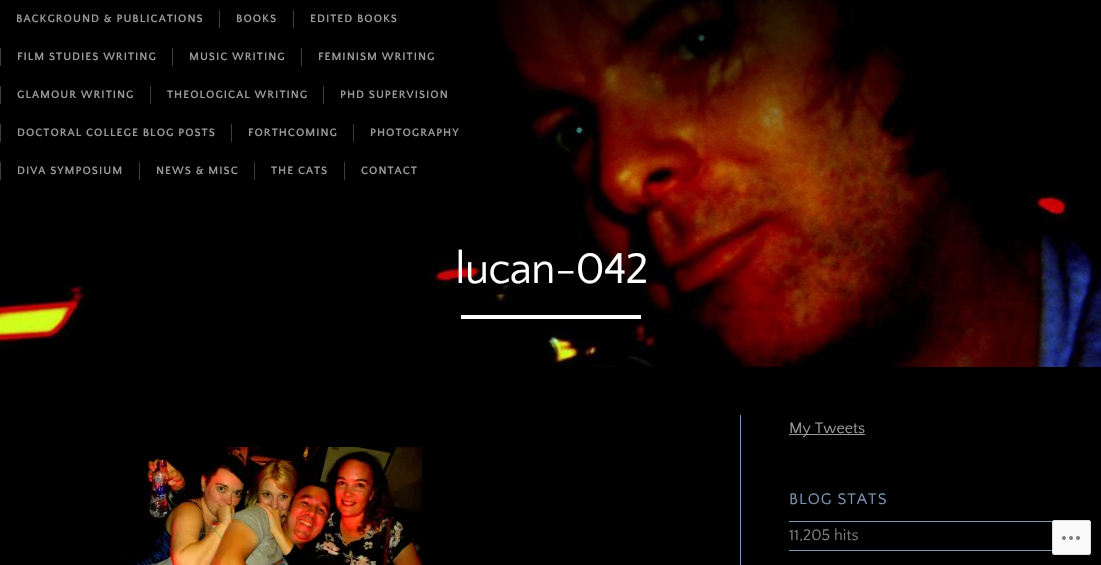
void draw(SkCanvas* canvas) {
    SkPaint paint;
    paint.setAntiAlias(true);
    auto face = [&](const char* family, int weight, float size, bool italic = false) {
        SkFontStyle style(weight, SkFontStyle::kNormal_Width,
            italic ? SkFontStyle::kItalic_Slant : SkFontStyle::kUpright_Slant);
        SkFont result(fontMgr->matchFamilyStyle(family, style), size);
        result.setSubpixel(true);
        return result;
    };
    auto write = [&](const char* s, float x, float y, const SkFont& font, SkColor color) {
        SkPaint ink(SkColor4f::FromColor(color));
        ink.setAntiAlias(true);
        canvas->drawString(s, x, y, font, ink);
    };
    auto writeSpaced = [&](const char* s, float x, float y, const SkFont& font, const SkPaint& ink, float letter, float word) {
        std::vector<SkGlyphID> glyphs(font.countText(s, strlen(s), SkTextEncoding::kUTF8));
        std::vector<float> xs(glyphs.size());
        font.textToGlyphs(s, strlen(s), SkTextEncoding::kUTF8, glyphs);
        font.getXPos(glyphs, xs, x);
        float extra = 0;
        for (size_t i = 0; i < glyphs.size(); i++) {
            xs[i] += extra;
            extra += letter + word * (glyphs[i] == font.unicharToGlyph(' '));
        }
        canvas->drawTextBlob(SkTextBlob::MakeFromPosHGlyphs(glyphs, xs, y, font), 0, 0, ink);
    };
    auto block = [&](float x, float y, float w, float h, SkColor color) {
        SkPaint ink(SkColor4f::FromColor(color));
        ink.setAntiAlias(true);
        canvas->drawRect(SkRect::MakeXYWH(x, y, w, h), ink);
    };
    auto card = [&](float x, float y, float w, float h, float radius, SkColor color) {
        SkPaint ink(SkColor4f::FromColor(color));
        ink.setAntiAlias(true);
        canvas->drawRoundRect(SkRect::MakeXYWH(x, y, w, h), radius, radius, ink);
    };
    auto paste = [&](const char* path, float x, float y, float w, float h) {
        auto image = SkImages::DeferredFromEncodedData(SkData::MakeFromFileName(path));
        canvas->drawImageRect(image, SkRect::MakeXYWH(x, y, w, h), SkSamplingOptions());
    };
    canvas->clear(SK_ColorBLACK);
    paste("pic1.png", 0, 0, 1101, 367);
    {
        const SkColor colors[] = {SkColorSetARGB(204, 0, 0, 0), SkColorSetARGB(0, 0, 0, 0)};
        const float stops[] = {0, 1};
        const SkPoint ends[] = {{551, 0}, {551, 190}};
        paint.setShader(SkGradientShader::MakeLinear(ends, colors, stops, 2, SkTileMode::kClamp));
        paint.setAlpha(255);
    }
    canvas->drawRect(SkRect::MakeXYWH(489, 0, 426, 185), paint);
    auto kFont1 = face("Quattrocento Sans", 700, 11.25f);
    paint.setShader(nullptr);
    paint.setColor(SkColorSetRGB(153, 153, 153));
    writeSpaced("BACKGROUND & PUBLICATIONS", 16, 22, kFont1, paint, 1, 0);
    block(219, 10, 1, 18, SkColorSetRGB(61, 61, 61));
    writeSpaced("BOOKS", 236, 22, kFont1, paint, 1, 0);
    block(293, 10, 1, 18, SkColorSetRGB(61, 61, 61));
    writeSpaced("EDITED BOOKS", 310, 22, kFont1, paint, 1, 0);
    block(0, 48, 1, 18, SkColorSetRGB(61, 61, 61));
    writeSpaced("FILM STUDIES WRITING", 17, 60, kFont1, paint, 1, 0);
    block(172, 48, 1, 18, SkColorSetRGB(61, 61, 61));
    writeSpaced("MUSIC WRITING", 189, 60, kFont1, paint, 1, 0);
    block(301, 48, 1, 18, SkColorSetRGB(61, 61, 61));
    writeSpaced("FEMINISM WRITING", 318, 60, kFont1, paint, 1, 0);
    block(0, 86, 1, 18, SkColorSetRGB(61, 61, 61));
    writeSpaced("GLAMOUR WRITING", 17, 98, kFont1, paint, 1, 0);
    block(150, 86, 1, 18, SkColorSetRGB(61, 61, 61));
    writeSpaced("THEOLOGICAL WRITING", 167, 98, kFont1, paint, 1, 0);
    block(323, 86, 1, 18, SkColorSetRGB(61, 61, 61));
    writeSpaced("PHD SUPERVISION", 340, 98, kFont1, paint, 1, 0);
    block(0, 124, 1, 18, SkColorSetRGB(61, 61, 61));
    writeSpaced("DOCTORAL COLLEGE BLOG POSTS", 17, 136, kFont1, paint, 1, 0);
    block(231, 124, 1, 18, SkColorSetRGB(61, 61, 61));
    writeSpaced("FORTHCOMING", 248, 136, kFont1, paint, 1, 0);
    block(353, 124, 1, 18, SkColorSetRGB(61, 61, 61));
    writeSpaced("PHOTOGRAPHY", 370, 136, kFont1, paint, 1, 0);
    block(0, 162, 1, 18, SkColorSetRGB(61, 61, 61));
    writeSpaced("DIVA SYMPOSIUM", 17, 174, kFont1, paint, 1, 0);
    block(139, 162, 1, 18, SkColorSetRGB(61, 61, 61));
    writeSpaced("NEWS & MISC", 156, 174, kFont1, paint, 1, 0);
    block(254, 162, 1, 18, SkColorSetRGB(61, 61, 61));
    writeSpaced("THE CATS", 271, 174, kFont1, paint, 1, 0);
    block(344, 162, 1, 18, SkColorSetRGB(61, 61, 61));
    writeSpaced("CONTACT", 361, 174, kFont1, paint, 1, 0);
    auto kFont2 = face("Quattrocento Sans", 400, 45);
    paint.setColor(SK_ColorWHITE);
    writeSpaced("lucan-042", 455, 283, kFont2, paint, -1, 0);
    block(461, 315, 180, 4, SK_ColorWHITE);
    paste("pic2.png", 122, 447, 300, 118);
    block(740, 415, 1, 150, SkColorSetRGB(127, 151, 181));
    block(789, 434, 76, 1, SkColorSetRGB(153, 153, 153));
    auto kFont3 = face("Quattrocento Sans", 400, 16);
    write("My Tweets", 789, 433, kFont3, SkColorSetRGB(153, 153, 153));
    paint.setColor(SkColorSetRGB(127, 151, 181));
    writeSpaced("BLOG STATS", 789, 504, kFont3, paint, 1, 0);
    block(789, 521, 268, 1, SkColorSetRGB(127, 151, 181));
    block(789, 550, 268, 1, SkColorSetRGB(127, 151, 181));
    write("11,205 hits", 789, 540, kFont3, SkColorSetRGB(124, 124, 124));
    card(1052, 520, 39, 35, 3, SkColorSetARGB(250, 255, 255, 255));
    paint.setStyle(SkPaint::kStroke_Style);
    paint.setStrokeWidth(1);
    paint.setColor(SkColorSetARGB(250, 220, 220, 222));
    canvas->drawRoundRect(SkRect::MakeXYWH(1052.5f, 520.5f, 38, 34), 2.5f, 2.5f, paint);
    paste("pic3.png", 1062, 536, 18, 4);
}
